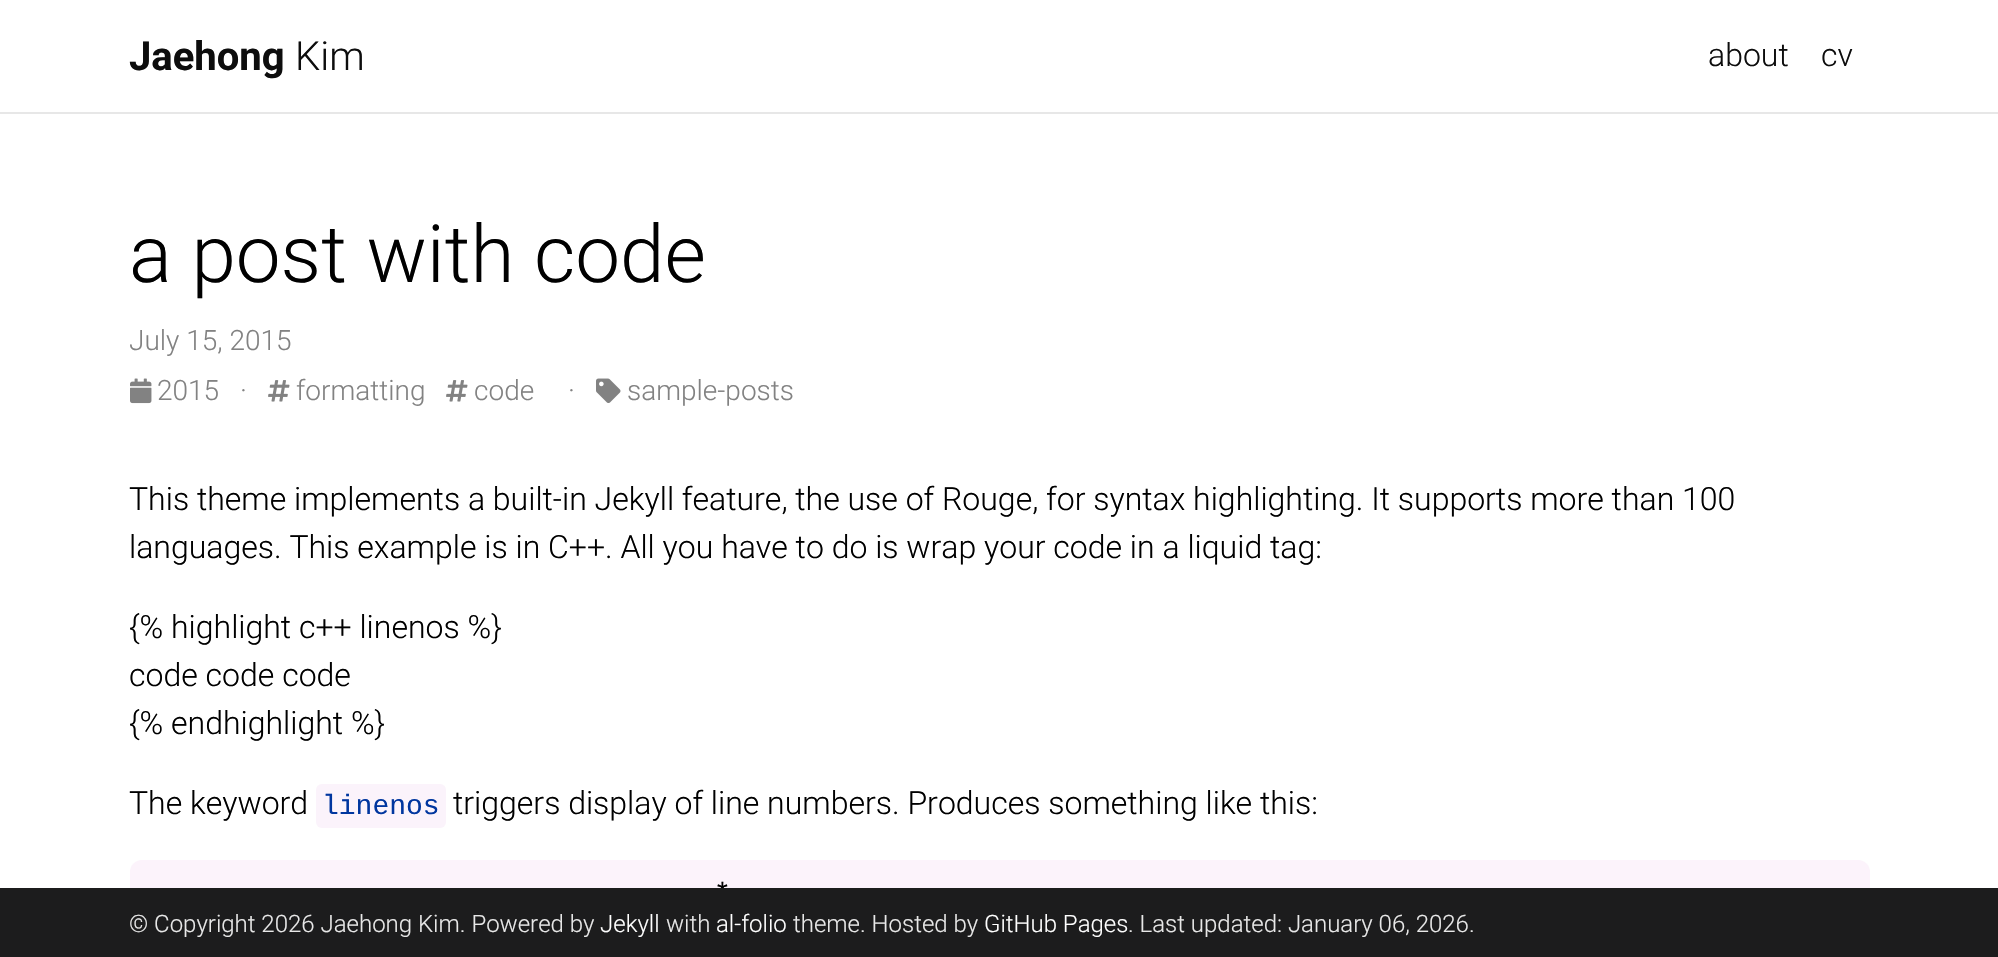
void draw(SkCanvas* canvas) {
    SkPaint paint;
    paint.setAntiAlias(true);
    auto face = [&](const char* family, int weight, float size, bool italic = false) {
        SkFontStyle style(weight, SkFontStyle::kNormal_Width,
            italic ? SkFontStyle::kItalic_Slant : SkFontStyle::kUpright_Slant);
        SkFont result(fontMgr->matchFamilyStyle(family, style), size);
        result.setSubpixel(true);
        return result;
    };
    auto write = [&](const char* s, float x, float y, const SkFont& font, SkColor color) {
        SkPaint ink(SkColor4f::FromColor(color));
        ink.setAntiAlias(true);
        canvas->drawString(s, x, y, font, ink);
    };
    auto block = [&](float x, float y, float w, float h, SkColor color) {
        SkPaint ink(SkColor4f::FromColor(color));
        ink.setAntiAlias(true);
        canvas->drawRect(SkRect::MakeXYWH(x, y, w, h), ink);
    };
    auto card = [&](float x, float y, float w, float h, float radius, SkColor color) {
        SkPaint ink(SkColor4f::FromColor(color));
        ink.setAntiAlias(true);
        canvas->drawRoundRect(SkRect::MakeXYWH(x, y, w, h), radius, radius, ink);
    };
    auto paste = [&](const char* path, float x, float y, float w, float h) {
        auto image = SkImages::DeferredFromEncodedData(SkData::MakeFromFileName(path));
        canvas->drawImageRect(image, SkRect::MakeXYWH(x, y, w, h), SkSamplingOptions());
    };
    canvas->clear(SK_ColorWHITE);
    block(0, 112, 1998, 2, SkColorSetRGB(231, 231, 231));
    auto kFont1 = face("Roboto", 700, 40);
    write("Jaehong", 129, 70, kFont1, SkColorSetRGB(13, 13, 13));
    auto kFont2 = face("Roboto", 300, 40);
    write("Kim", 295, 70, kFont2, SkColorSetRGB(13, 13, 13));
    auto kFont3 = face("Roboto", 300, 32);
    write("about", 1708, 66, kFont3, SkColorSetRGB(13, 13, 13));
    write("cv", 1821, 66, kFont3, SkColorSetRGB(13, 13, 13));
    auto kFont4 = face("Roboto", 300, 80);
    write("a post with code", 129, 282, kFont4, SK_ColorBLACK);
    auto kFont5 = face("Roboto", 300, 28);
    write("July 15, 2015", 129, 350, kFont5, SkColorSetRGB(130, 130, 130));
    paste("pic1.png", 130, 378, 22, 26);
    write("2015", 157, 400, kFont5, SkColorSetRGB(130, 130, 130));
    write("·", 240, 400, kFont5, SkColorSetRGB(130, 130, 130));
    paste("pic2.png", 268, 380, 22, 22);
    write("formatting", 296, 400, kFont5, SkColorSetRGB(130, 130, 130));
    paste("pic2.png", 446, 380, 22, 22);
    write("code", 474, 400, kFont5, SkColorSetRGB(130, 130, 130));
    write("·", 568, 400, kFont5, SkColorSetRGB(130, 130, 130));
    paste("pic3.png", 596, 378, 25, 25);
    write("sample-posts", 627, 400, kFont5, SkColorSetRGB(130, 130, 130));
    write("This theme implements a built-in Jekyll feature, the use of Rouge, for syntax highlighting. It supports more than 100", 129, 510, kFont3, SK_ColorBLACK);
    write("languages. This example is in C++. All you have to do is wrap your code in a liquid tag:", 129, 558, kFont3, SK_ColorBLACK);
    write("{% highlight c++ linenos %}", 129, 638, kFont3, SK_ColorBLACK);
    write("code code code", 129, 686, kFont3, SK_ColorBLACK);
    write("{% endhighlight %}", 129, 734, kFont3, SK_ColorBLACK);
    write("The keyword", 129, 814, kFont3, SK_ColorBLACK);
    card(316, 784, 130, 44, 6, SkColorSetRGB(251, 243, 251));
    auto kFont6 = face("Liberation Mono", 400, 28);
    write("linenos", 322, 814, kFont6, SkColorSetRGB(0, 54, 159));
    write("triggers display of line numbers. Produces something like this:", 453, 814, kFont3, SK_ColorBLACK);
    card(130, 860, 1740, 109, 12, SkColorSetRGB(252, 243, 251));
    write("*", 714, 902, kFont6, SK_ColorBLACK);
    block(0, 888, 1998, 69, SkColorSetRGB(28, 28, 29));
    auto kFont7 = face("Roboto", 300, 24);
    write("© Copyright 2026 Jaehong Kim. Powered by", 129, 932, kFont7, SkColorSetRGB(232, 232, 232));
    write("Jekyll", 600, 932, kFont7, SK_ColorWHITE);
    write("with", 666, 932, kFont7, SkColorSetRGB(232, 232, 232));
    write("al-folio", 716, 932, kFont7, SK_ColorWHITE);
    write("theme. Hosted by", 793, 932, kFont7, SkColorSetRGB(232, 232, 232));
    write("GitHub Pages", 984, 932, kFont7, SK_ColorWHITE);
    write(". Last updated: January 06, 2026.", 1128, 932, kFont7, SkColorSetRGB(232, 232, 232));
}
